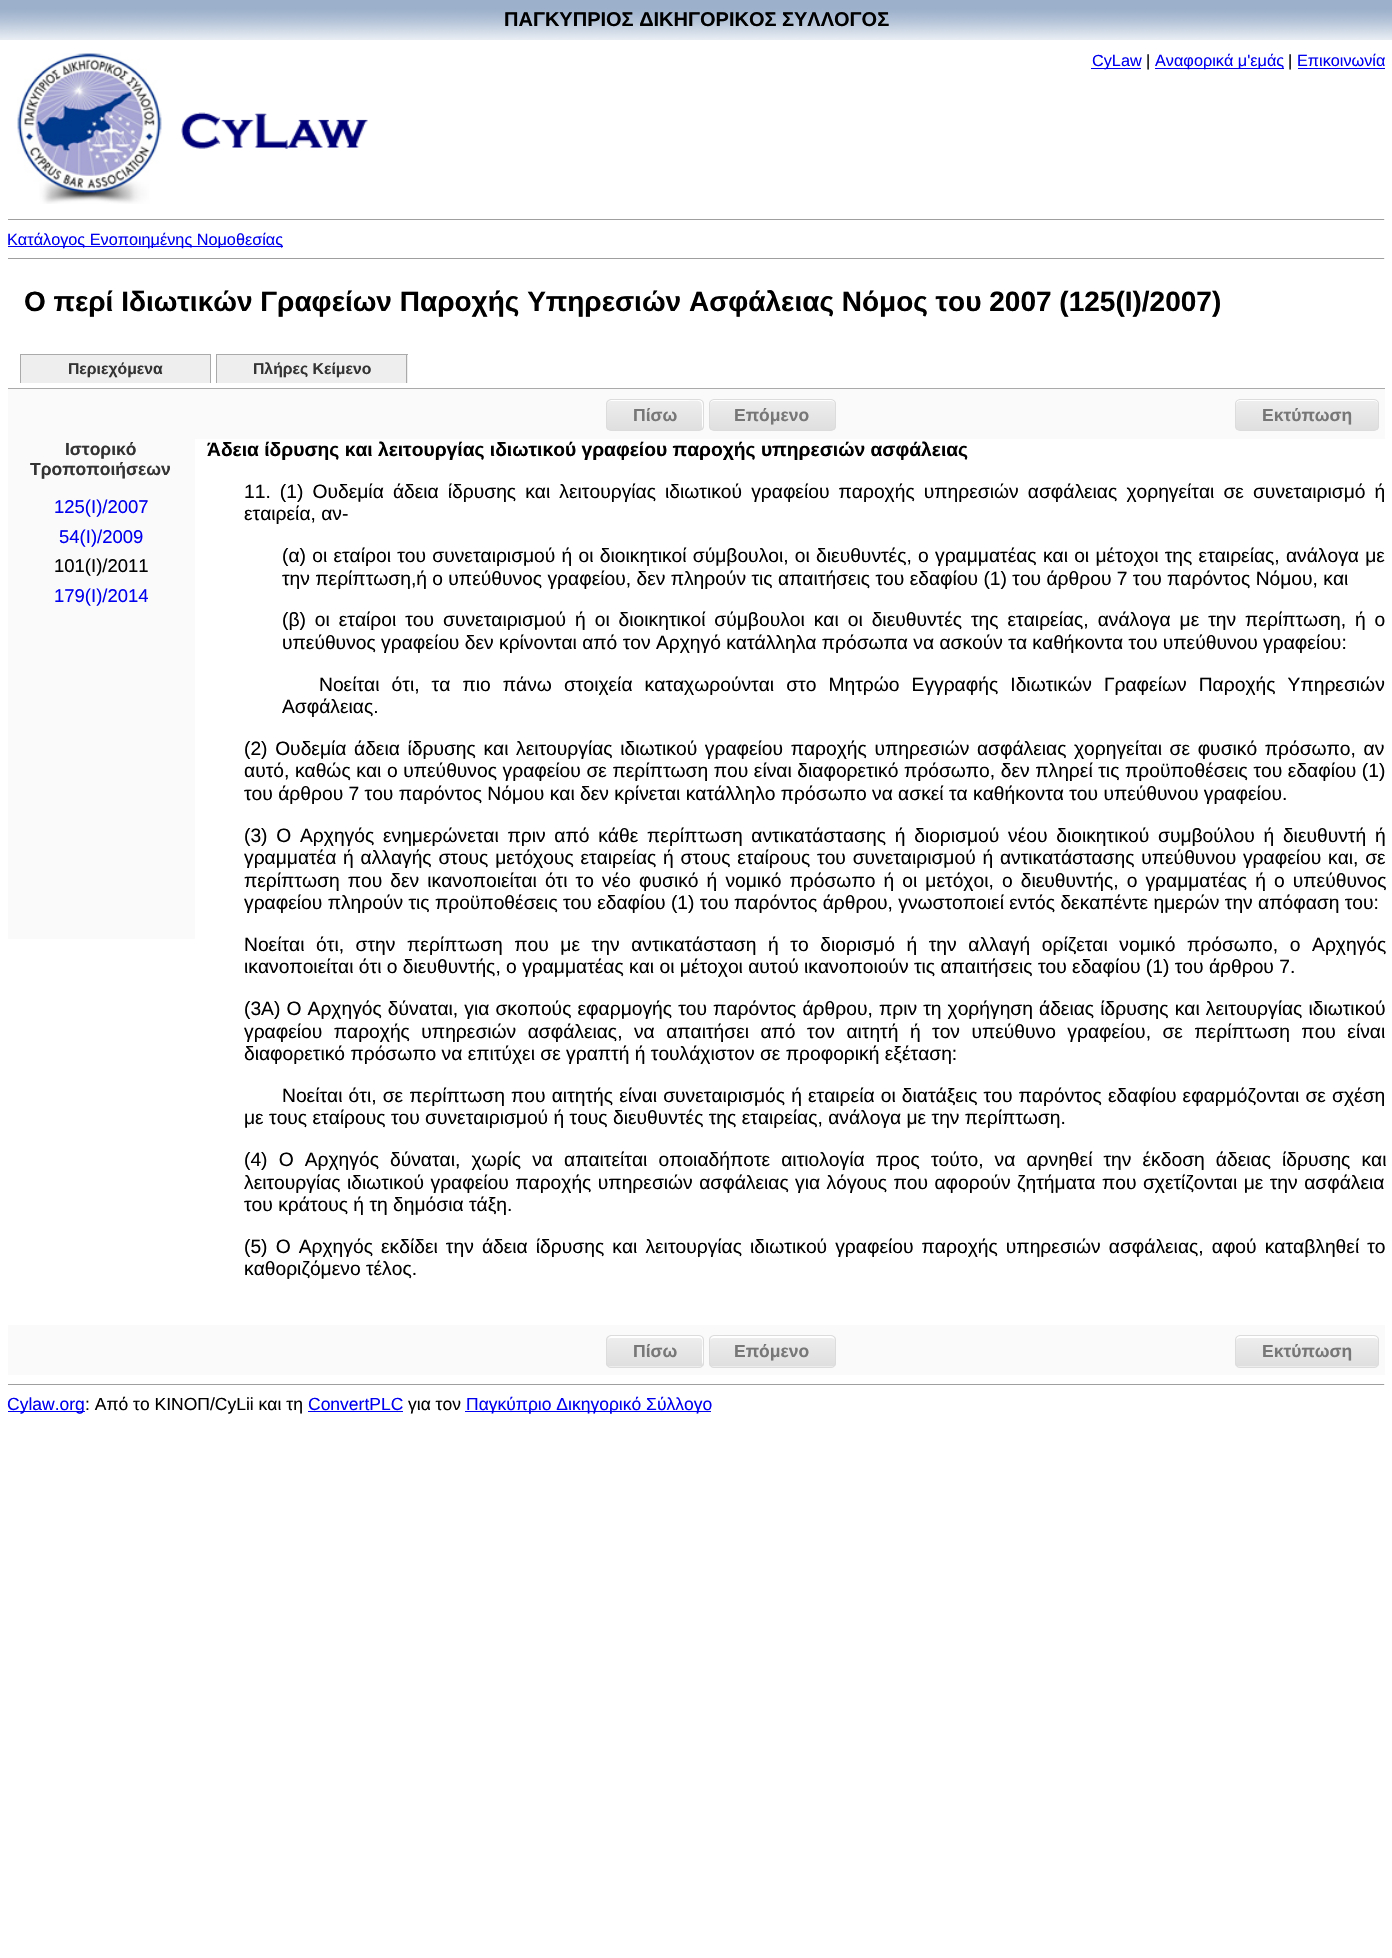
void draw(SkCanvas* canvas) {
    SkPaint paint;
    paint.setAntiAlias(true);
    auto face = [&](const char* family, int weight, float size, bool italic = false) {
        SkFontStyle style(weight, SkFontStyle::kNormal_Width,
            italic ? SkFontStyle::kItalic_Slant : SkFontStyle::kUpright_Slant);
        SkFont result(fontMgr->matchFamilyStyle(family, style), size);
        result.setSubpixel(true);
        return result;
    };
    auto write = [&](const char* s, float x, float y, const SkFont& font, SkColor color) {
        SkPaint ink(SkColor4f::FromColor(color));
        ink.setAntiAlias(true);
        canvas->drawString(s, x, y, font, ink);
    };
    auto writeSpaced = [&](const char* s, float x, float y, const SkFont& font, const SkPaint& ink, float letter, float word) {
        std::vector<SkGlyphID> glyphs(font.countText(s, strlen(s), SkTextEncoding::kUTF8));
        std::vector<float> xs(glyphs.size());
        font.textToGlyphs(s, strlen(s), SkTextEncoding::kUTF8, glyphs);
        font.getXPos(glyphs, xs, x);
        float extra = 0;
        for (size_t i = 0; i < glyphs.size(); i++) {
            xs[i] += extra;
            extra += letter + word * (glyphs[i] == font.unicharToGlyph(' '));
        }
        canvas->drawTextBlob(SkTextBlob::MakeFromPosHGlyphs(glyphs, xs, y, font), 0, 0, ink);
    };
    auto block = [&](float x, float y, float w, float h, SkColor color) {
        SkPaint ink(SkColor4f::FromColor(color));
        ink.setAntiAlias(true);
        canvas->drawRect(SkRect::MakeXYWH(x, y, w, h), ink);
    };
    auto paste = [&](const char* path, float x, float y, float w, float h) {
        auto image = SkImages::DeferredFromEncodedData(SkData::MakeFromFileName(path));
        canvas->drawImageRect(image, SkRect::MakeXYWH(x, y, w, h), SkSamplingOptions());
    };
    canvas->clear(SK_ColorWHITE);
    paste("pic1.png", 0, 0, 1392, 40);
    auto kFont1 = face("Liberation Sans", 700, 20);
    write("ΠΑΓΚΥΠΡΙΟΣ ΔΙΚΗΓΟΡΙΚΟΣ ΣΥΛΛΟΓΟΣ", 504, 26, kFont1, SK_ColorBLACK);
    paste("pic2.png", 17, 53, 145, 151);
    paste("pic3.png", 181, 112, 187, 37);
    block(1091, 68, 50, 1, SkColorSetRGB(0, 0, 238));
    auto kFont2 = face("Liberation Sans", 400, 16.25f);
    write("CyLaw", 1092, 66, kFont2, SkColorSetRGB(0, 0, 238));
    write("|", 1146, 66, kFont2, SK_ColorBLACK);
    block(1155, 68, 129, 1, SkColorSetRGB(0, 0, 238));
    write("Αναφορικά μ'εμάς", 1155, 66, kFont2, SkColorSetRGB(0, 0, 238));
    write("|", 1288, 66, kFont2, SK_ColorBLACK);
    write("Επικοινωνία", 1297, 66, kFont2, SkColorSetRGB(0, 0, 238));
    block(1298, 68, 87, 1, SkColorSetRGB(0, 0, 238));
    block(8, 219, 1377, 1, SkColorSetRGB(159, 159, 159));
    block(1384, 219, 1, 1, SkColorSetRGB(238, 238, 238));
    block(8, 246, 275, 1, SkColorSetRGB(0, 0, 238));
    write("Κατάλογος Ενοποιημένης Νομοθεσίας", 7, 245, kFont2, SkColorSetRGB(0, 0, 238));
    block(8, 258, 1377, 1, SkColorSetRGB(159, 159, 159));
    block(1384, 258, 1, 1, SkColorSetRGB(238, 238, 238));
    auto kFont3 = face("Liberation Sans", 700, 28);
    write("Ο περί Ιδιωτικών Γραφείων Παροχής Υπηρεσιών Ασφάλειας Νόμος του 2007 (125(I)/2007)", 24, 311, kFont3, SK_ColorBLACK);
    block(8, 388, 1377, 1, SkColorSetRGB(170, 170, 170));
    block(21, 355, 189, 28, SkColorSetRGB(238, 238, 238));
    block(20, 354, 191, 1, SkColorSetRGB(170, 170, 170));
    block(210, 354, 1, 29, SkColorSetRGB(170, 170, 170));
    block(20, 354, 1, 29, SkColorSetRGB(170, 170, 170));
    auto kFont4 = face("Liberation Sans", 700, 15.75f);
    write("Περιεχόμενα", 68, 374, kFont4, SkColorSetRGB(51, 51, 51));
    block(217, 355, 191, 28, SkColorSetRGB(238, 238, 238));
    block(216, 354, 192, 1, SkColorSetRGB(170, 170, 170));
    block(406, 354, 1, 29, SkColorSetRGB(170, 170, 170));
    block(216, 354, 1, 29, SkColorSetRGB(170, 170, 170));
    write("Πλήρες Κείμενο", 253, 374, kFont4, SkColorSetRGB(51, 51, 51));
    block(8, 389, 1377, 50, SkColorSetRGB(250, 250, 250));
    canvas->save();
    canvas->clipPath(SkPathBuilder().moveTo(611, 399).lineTo(699, 399).cubicTo(702, 399, 704, 401, 704, 404).lineTo(704, 426).cubicTo(704, 429, 702, 431, 699, 431).lineTo(611, 431).cubicTo(608, 431, 606, 429, 606, 426).lineTo(606, 404).cubicTo(606, 401, 608, 399, 611, 399).close().detach(), true);
    {
        const SkColor colors[] = {SkColorSetRGB(237, 237, 237), SkColorSetRGB(223, 223, 223)};
        const float stops[] = {0.05f, 1};
        const SkPoint ends[] = {{608, 400}, {608, 430}};
        paint.setShader(SkGradientShader::MakeLinear(ends, colors, stops, 2, SkTileMode::kClamp));
        paint.setAlpha(255);
    }
    canvas->drawRect(SkRect::MakeXYWH(606, 400, 98, 30), paint);
    canvas->restore();
    paint.setShader(nullptr);
    paint.setColor(SK_ColorWHITE);
    canvas->drawPath(SkPathBuilder().moveTo(611, 401).lineTo(684, 401).cubicTo(702, 401, 702, 398, 702, 413).lineTo(702, 429).cubicTo(704, 426, 703, 418, 703, 415).cubicTo(703, 397, 705, 400, 684, 400).lineTo(626, 400).cubicTo(622, 400, 608, 396, 608, 405).cubicTo(608, 403, 609, 401, 611, 401).close().detach(), paint);
    paint.setStyle(SkPaint::kStroke_Style);
    paint.setStrokeWidth(1);
    paint.setColor(SkColorSetRGB(220, 220, 220));
    canvas->drawRoundRect(SkRect::MakeXYWH(606.5f, 399.5f, 97, 31), 4.5f, 4.5f, paint);
    auto kFont5 = face("Liberation Sans", 700, 17.5f);
    write("Πίσω", 633, 421, kFont5, SkColorSetRGB(119, 119, 119));
    canvas->save();
    canvas->clipPath(SkPathBuilder().moveTo(714, 399).lineTo(831, 399).cubicTo(834, 399, 836, 401, 836, 404).lineTo(836, 426).cubicTo(836, 429, 834, 431, 831, 431).lineTo(714, 431).cubicTo(711, 431, 709, 429, 709, 426).lineTo(709, 404).cubicTo(709, 401, 711, 399, 714, 399).close().detach(), true);
    paint.setStyle(SkPaint::kFill_Style);
    {
        const SkColor colors[] = {SkColorSetRGB(237, 237, 237), SkColorSetRGB(223, 223, 223)};
        const float stops[] = {0.05f, 1};
        const SkPoint ends[] = {{710, 400}, {710, 430}};
        paint.setShader(SkGradientShader::MakeLinear(ends, colors, stops, 2, SkTileMode::kClamp));
        paint.setAlpha(255);
    }
    canvas->drawRect(SkRect::MakeXYWH(709, 400, 127, 30), paint);
    canvas->restore();
    paint.setShader(nullptr);
    paint.setColor(SK_ColorWHITE);
    canvas->drawPath(SkPathBuilder().moveTo(714, 401).lineTo(831, 401).cubicTo(833, 401, 835, 403, 835, 405).cubicTo(835, 395, 814, 400, 812, 400).lineTo(734, 400).cubicTo(731, 400, 710, 395, 710, 405).cubicTo(710, 403, 712, 401, 714, 401).close().detach(), paint);
    paint.setStyle(SkPaint::kStroke_Style);
    paint.setColor(SkColorSetRGB(220, 220, 220));
    canvas->drawRoundRect(SkRect::MakeXYWH(709.5f, 399.5f, 126, 31), 4.5f, 4.5f, paint);
    write("Επόμενο", 734, 421, kFont5, SkColorSetRGB(119, 119, 119));
    canvas->save();
    canvas->clipPath(SkPathBuilder().moveTo(1240, 399).lineTo(1374, 399).cubicTo(1377, 399, 1379, 401, 1379, 404).lineTo(1379, 426).cubicTo(1379, 429, 1377, 431, 1374, 431).lineTo(1240, 431).cubicTo(1237, 431, 1235, 429, 1235, 426).lineTo(1235, 404).cubicTo(1235, 401, 1237, 399, 1240, 399).close().detach(), true);
    paint.setStyle(SkPaint::kFill_Style);
    {
        const SkColor colors[] = {SkColorSetRGB(237, 237, 237), SkColorSetRGB(223, 223, 223)};
        const float stops[] = {0.05f, 1};
        const SkPoint ends[] = {{1236, 400}, {1236, 430}};
        paint.setShader(SkGradientShader::MakeLinear(ends, colors, stops, 2, SkTileMode::kClamp));
        paint.setAlpha(255);
    }
    canvas->drawRect(SkRect::MakeXYWH(1235, 400, 144, 30), paint);
    canvas->restore();
    paint.setShader(nullptr);
    paint.setColor(SK_ColorWHITE);
    canvas->drawPath(SkPathBuilder().moveTo(1240, 401).lineTo(1374, 401).cubicTo(1376, 401, 1378, 403, 1378, 405).lineTo(1378, 404).cubicTo(1378, 402, 1376, 400, 1374, 400).lineTo(1240, 400).cubicTo(1238, 400, 1236, 402, 1236, 404).lineTo(1236, 405).cubicTo(1236, 403, 1238, 401, 1240, 401).close().detach(), paint);
    paint.setStyle(SkPaint::kStroke_Style);
    paint.setColor(SkColorSetRGB(220, 220, 220));
    canvas->drawRoundRect(SkRect::MakeXYWH(1235.5f, 399.5f, 143, 31), 4.5f, 4.5f, paint);
    write("Εκτύπωση", 1262, 421, kFont5, SkColorSetRGB(119, 119, 119));
    block(8, 439, 187, 500, SkColorSetRGB(250, 250, 250));
    write("Ιστορικό", 65, 455, kFont5, SkColorSetRGB(51, 51, 51));
    write("Τροποποιήσεων", 30, 475, kFont5, SkColorSetRGB(51, 51, 51));
    auto kFont6 = face("Liberation Sans", 400, 18.5f);
    write("125(I)/2007", 54, 513, kFont6, SkColorSetRGB(0, 0, 238));
    write("54(I)/2009", 59, 543, kFont6, SkColorSetRGB(0, 0, 238));
    write("101(I)/2011", 54, 572, kFont6, SK_ColorBLACK);
    write("179(Ι)/2014", 54, 602, kFont6, SkColorSetRGB(0, 0, 238));
    auto kFont7 = face("Liberation Sans", 700, 19.25f);
    write("Άδεια ίδρυσης και λειτουργίας ιδιωτικού γραφείου παροχής υπηρεσιών ασφάλειας", 207, 456, kFont7, SK_ColorBLACK);
    auto kFont8 = face("Liberation Sans", 400, 19.25f);
    paint.setStyle(SkPaint::kFill_Style);
    paint.setColor(SK_ColorBLACK);
    writeSpaced("11. (1) Ουδεμία άδεια ίδρυσης και λειτουργίας ιδιωτικού γραφείου παροχής υπηρεσιών ασφάλειας χορηγείται σε συνεταιρισμό ή", 244, 498, kFont8, paint, 0, 3.75f);
    write("εταιρεία, αν-", 244, 520, kFont8, SK_ColorBLACK);
    writeSpaced("(α) οι εταίροι του συνεταιρισμού ή οι διοικητικοί σύμβουλοι, οι διευθυντές, ο γραμματέας και οι μέτοχοι της εταιρείας, ανάλογα με", 282, 562, kFont8, paint, 0, 0.9f);
    write("την περίπτωση,ή ο υπεύθυνος γραφείου, δεν πληρούν τις απαιτήσεις του εδαφίου (1) του άρθρου 7 του παρόντος Νόμου, και", 282, 585, kFont8, SK_ColorBLACK);
    writeSpaced("(β) οι εταίροι του συνεταιρισμού ή οι διοικητικοί σύμβουλοι και οι διευθυντές της εταιρείας, ανάλογα με την περίπτωση, ή ο", 282, 626, kFont8, paint, 0, 3.6f);
    write("υπεύθυνος γραφείου δεν κρίνονται από τον Αρχηγό κατάλληλα πρόσωπα να ασκούν τα καθήκοντα του υπεύθυνου γραφείου:", 282, 649, kFont8, SK_ColorBLACK);
    writeSpaced("Νοείται ότι, τα πιο πάνω στοιχεία καταχωρούνται στο Μητρώο Εγγραφής Ιδιωτικών Γραφείων Παροχής Υπηρεσιών", 319, 691, kFont8, paint, 0, 6.75f);
    write("Ασφάλειας.", 282, 713, kFont8, SK_ColorBLACK);
    writeSpaced("(2) Ουδεμία άδεια ίδρυσης και λειτουργίας ιδιωτικού γραφείου παροχής υπηρεσιών ασφάλειας χορηγείται σε φυσικό πρόσωπο, αν", 244, 755, kFont8, paint, 0, 2.25f);
    writeSpaced("αυτό, καθώς και ο υπεύθυνος γραφείου σε περίπτωση που είναι διαφορετικό πρόσωπο, δεν πληρεί τις προϋποθέσεις του εδαφίου (1)", 244, 777, kFont8, paint, 0, 0.25f);
    write("του άρθρου 7 του παρόντος Νόμου και δεν κρίνεται κατάλληλο πρόσωπο να ασκεί τα καθήκοντα του υπεύθυνου γραφείου.", 244, 800, kFont8, SK_ColorBLACK);
    writeSpaced("(3) Ο Αρχηγός ενημερώνεται πριν από κάθε περίπτωση αντικατάστασης ή διορισμού νέου διοικητικού συμβούλου ή διευθυντή ή", 244, 842, kFont8, paint, 0, 3.4f);
    writeSpaced("γραμματέα ή αλλαγής στους μετόχους εταιρείας ή στους εταίρους του συνεταιρισμού ή αντικατάστασης υπεύθυνου γραφείου και, σε", 244, 864, kFont8, paint, 0, 1.4f);
    writeSpaced("περίπτωση που δεν ικανοποιείται ότι το νέο φυσικό ή νομικό πρόσωπο ή οι μετόχοι, ο διευθυντής, ο γραμματέας ή ο υπεύθυνος", 244, 887, kFont8, paint, 0, 2.75f);
    write("γραφείου πληρούν τις προϋποθέσεις του εδαφίου (1) του παρόντος άρθρου, γνωστοποιεί εντός δεκαπέντε ημερών την απόφαση του:", 244, 909, kFont8, SK_ColorBLACK);
    writeSpaced("Νοείται ότι, στην περίπτωση που με την αντικατάσταση ή το διορισμό ή την αλλαγή ορίζεται νομικό πρόσωπο, ο Αρχηγός", 244, 951, kFont8, paint, 0, 6.25f);
    write("ικανοποιείται ότι ο διευθυντής, ο γραμματέας και οι μέτοχοι αυτού ικανοποιούν τις απαιτήσεις του εδαφίου (1) του άρθρου 7.", 244, 973, kFont8, SK_ColorBLACK);
    writeSpaced("(3Α) Ο Αρχηγός δύναται, για σκοπούς εφαρμογής του παρόντος άρθρου, πριν τη χορήγηση άδειας ίδρυσης και λειτουργίας ιδιωτικού", 244, 1015, kFont8, paint, 0, 0.75f);
    writeSpaced("γραφείου παροχής υπηρεσιών ασφάλειας, να απαιτήσει από τον αιτητή ή τον υπεύθυνο γραφείου, σε περίπτωση που είναι", 244, 1038, kFont8, paint, 0, 6.1f);
    write("διαφορετικό πρόσωπο να επιτύχει σε γραπτή ή τουλάχιστον σε προφορική εξέταση:", 244, 1060, kFont8, SK_ColorBLACK);
    writeSpaced("Νοείται ότι, σε περίπτωση που αιτητής είναι συνεταιρισμός ή εταιρεία οι διατάξεις του παρόντος εδαφίου εφαρμόζονται σε σχέση", 282, 1102, kFont8, paint, 0, 0.8f);
    write("με τους εταίρους του συνεταιρισμού ή τους διευθυντές της εταιρείας, ανάλογα με την περίπτωση.", 244, 1124, kFont8, SK_ColorBLACK);
    writeSpaced("(4) Ο Αρχηγός δύναται, χωρίς να απαιτείται οποιαδήποτε αιτιολογία προς τούτο, να αρνηθεί την έκδοση άδειας ίδρυσης και", 244, 1166, kFont8, paint, 0, 5.75f);
    writeSpaced("λειτουργίας ιδιωτικού γραφείου παροχής υπηρεσιών ασφάλειας για λόγους που αφορούν ζητήματα που σχετίζονται με την ασφάλεια", 244, 1189, kFont8, paint, 0, 1.1f);
    write("του κράτους ή τη δημόσια τάξη.", 244, 1211, kFont8, SK_ColorBLACK);
    writeSpaced("(5) Ο Αρχηγός εκδίδει την άδεια ίδρυσης και λειτουργίας ιδιωτικού γραφείου παροχής υπηρεσιών ασφάλειας, αφού καταβληθεί το", 244, 1253, kFont8, paint, 0, 2.75f);
    write("καθοριζόμενο τέλος.", 244, 1275, kFont8, SK_ColorBLACK);
    block(8, 1325, 1377, 50, SkColorSetRGB(250, 250, 250));
    canvas->save();
    canvas->clipPath(SkPathBuilder().moveTo(611, 1335).lineTo(699, 1335).cubicTo(702, 1335, 704, 1337, 704, 1340).lineTo(704, 1363).cubicTo(704, 1366, 702, 1368, 699, 1368).lineTo(611, 1368).cubicTo(608, 1368, 606, 1366, 606, 1363).lineTo(606, 1340).cubicTo(606, 1337, 608, 1335, 611, 1335).close().detach(), true);
    {
        const SkColor colors[] = {SkColorSetRGB(237, 237, 237), SkColorSetRGB(223, 223, 223)};
        const float stops[] = {0.05f, 1};
        const SkPoint ends[] = {{608, 1336}, {608, 1366}};
        paint.setShader(SkGradientShader::MakeLinear(ends, colors, stops, 2, SkTileMode::kClamp));
        paint.setAlpha(255);
    }
    canvas->drawRect(SkRect::MakeXYWH(606, 1336, 98, 30), paint);
    {
        const SkColor colors[] = {SkColorSetRGB(237, 237, 237), SkColorSetRGB(223, 223, 223)};
        const float stops[] = {0.05f, 1};
        const SkPoint ends[] = {{608, 1366}, {608, 1396}};
        paint.setShader(SkGradientShader::MakeLinear(ends, colors, stops, 2, SkTileMode::kClamp));
        paint.setAlpha(255);
    }
    canvas->drawRect(SkRect::MakeXYWH(606, 1366, 98, 2), paint);
    canvas->restore();
    paint.setShader(nullptr);
    paint.setColor(SK_ColorWHITE);
    canvas->drawPath(SkPathBuilder().moveTo(611, 1338).lineTo(699, 1338).cubicTo(704, 1338, 702, 1346, 702, 1349).lineTo(702, 1365).cubicTo(704, 1362, 703, 1354, 703, 1351).cubicTo(703, 1333, 705, 1336, 684, 1336).lineTo(626, 1336).cubicTo(622, 1336, 608, 1332, 608, 1341).cubicTo(608, 1339, 609, 1338, 611, 1338).close().detach(), paint);
    paint.setStyle(SkPaint::kStroke_Style);
    paint.setColor(SkColorSetRGB(220, 220, 220));
    canvas->drawRoundRect(SkRect::MakeXYWH(606.5f, 1335.5f, 97, 32), 4.5f, 4.5f, paint);
    write("Πίσω", 633, 1357, kFont5, SkColorSetRGB(119, 119, 119));
    canvas->save();
    canvas->clipPath(SkPathBuilder().moveTo(714, 1335).lineTo(831, 1335).cubicTo(834, 1335, 836, 1337, 836, 1340).lineTo(836, 1363).cubicTo(836, 1366, 834, 1368, 831, 1368).lineTo(714, 1368).cubicTo(711, 1368, 709, 1366, 709, 1363).lineTo(709, 1340).cubicTo(709, 1337, 711, 1335, 714, 1335).close().detach(), true);
    paint.setStyle(SkPaint::kFill_Style);
    {
        const SkColor colors[] = {SkColorSetRGB(237, 237, 237), SkColorSetRGB(223, 223, 223)};
        const float stops[] = {0.05f, 1};
        const SkPoint ends[] = {{710, 1336}, {710, 1366}};
        paint.setShader(SkGradientShader::MakeLinear(ends, colors, stops, 2, SkTileMode::kClamp));
        paint.setAlpha(255);
    }
    canvas->drawRect(SkRect::MakeXYWH(709, 1336, 127, 30), paint);
    {
        const SkColor colors[] = {SkColorSetRGB(237, 237, 237), SkColorSetRGB(223, 223, 223)};
        const float stops[] = {0.05f, 1};
        const SkPoint ends[] = {{710, 1366}, {710, 1396}};
        paint.setShader(SkGradientShader::MakeLinear(ends, colors, stops, 2, SkTileMode::kClamp));
        paint.setAlpha(255);
    }
    canvas->drawRect(SkRect::MakeXYWH(709, 1366, 127, 2), paint);
    canvas->restore();
    paint.setShader(nullptr);
    paint.setColor(SK_ColorWHITE);
    canvas->drawPath(SkPathBuilder().moveTo(714, 1338).lineTo(831, 1338).cubicTo(833, 1338, 835, 1339, 835, 1341).cubicTo(835, 1331, 814, 1336, 812, 1336).lineTo(734, 1336).cubicTo(731, 1336, 710, 1331, 710, 1341).cubicTo(710, 1339, 712, 1338, 714, 1338).close().detach(), paint);
    paint.setStyle(SkPaint::kStroke_Style);
    paint.setColor(SkColorSetRGB(220, 220, 220));
    canvas->drawRoundRect(SkRect::MakeXYWH(709.5f, 1335.5f, 126, 32), 4.5f, 4.5f, paint);
    write("Επόμενο", 734, 1357, kFont5, SkColorSetRGB(119, 119, 119));
    canvas->save();
    canvas->clipPath(SkPathBuilder().moveTo(1240, 1335).lineTo(1374, 1335).cubicTo(1377, 1335, 1379, 1337, 1379, 1340).lineTo(1379, 1363).cubicTo(1379, 1366, 1377, 1368, 1374, 1368).lineTo(1240, 1368).cubicTo(1237, 1368, 1235, 1366, 1235, 1363).lineTo(1235, 1340).cubicTo(1235, 1337, 1237, 1335, 1240, 1335).close().detach(), true);
    paint.setStyle(SkPaint::kFill_Style);
    {
        const SkColor colors[] = {SkColorSetRGB(237, 237, 237), SkColorSetRGB(223, 223, 223)};
        const float stops[] = {0.05f, 1};
        const SkPoint ends[] = {{1236, 1336}, {1236, 1366}};
        paint.setShader(SkGradientShader::MakeLinear(ends, colors, stops, 2, SkTileMode::kClamp));
        paint.setAlpha(255);
    }
    canvas->drawRect(SkRect::MakeXYWH(1235, 1336, 144, 30), paint);
    {
        const SkColor colors[] = {SkColorSetRGB(237, 237, 237), SkColorSetRGB(223, 223, 223)};
        const float stops[] = {0.05f, 1};
        const SkPoint ends[] = {{1236, 1366}, {1236, 1396}};
        paint.setShader(SkGradientShader::MakeLinear(ends, colors, stops, 2, SkTileMode::kClamp));
        paint.setAlpha(255);
    }
    canvas->drawRect(SkRect::MakeXYWH(1235, 1366, 144, 2), paint);
    canvas->restore();
    paint.setShader(nullptr);
    paint.setColor(SK_ColorWHITE);
    canvas->drawPath(SkPathBuilder().moveTo(1240, 1338).lineTo(1374, 1338).cubicTo(1376, 1338, 1378, 1339, 1378, 1341).lineTo(1378, 1340).cubicTo(1378, 1338, 1376, 1336, 1374, 1336).lineTo(1240, 1336).cubicTo(1238, 1336, 1236, 1338, 1236, 1340).lineTo(1236, 1341).cubicTo(1236, 1339, 1238, 1338, 1240, 1338).close().detach(), paint);
    paint.setStyle(SkPaint::kStroke_Style);
    paint.setColor(SkColorSetRGB(220, 220, 220));
    canvas->drawRoundRect(SkRect::MakeXYWH(1235.5f, 1335.5f, 143, 32), 4.5f, 4.5f, paint);
    write("Εκτύπωση", 1262, 1357, kFont5, SkColorSetRGB(119, 119, 119));
    block(8, 1384, 1377, 1, SkColorSetRGB(159, 159, 159));
    block(1384, 1384, 1, 1, SkColorSetRGB(238, 238, 238));
    block(8, 1411, 77, 1, SkColorSetRGB(0, 0, 238));
    auto kFont9 = face("Liberation Sans", 400, 17.5f);
    write("Cylaw.org", 7, 1410, kFont9, SkColorSetRGB(0, 0, 238));
    write(": Από το ΚΙΝOΠ/CyLii και τη", 85, 1410, kFont9, SK_ColorBLACK);
    write("ConvertPLC", 308, 1410, kFont9, SkColorSetRGB(0, 0, 238));
    block(308, 1411, 95, 1, SkColorSetRGB(0, 0, 238));
    write("για τον", 408, 1410, kFont9, SK_ColorBLACK);
    block(465, 1411, 246, 1, SkColorSetRGB(0, 0, 238));
    write("Παγκύπριο Δικηγορικό Σύλλογο", 466, 1410, kFont9, SkColorSetRGB(0, 0, 238));
}
